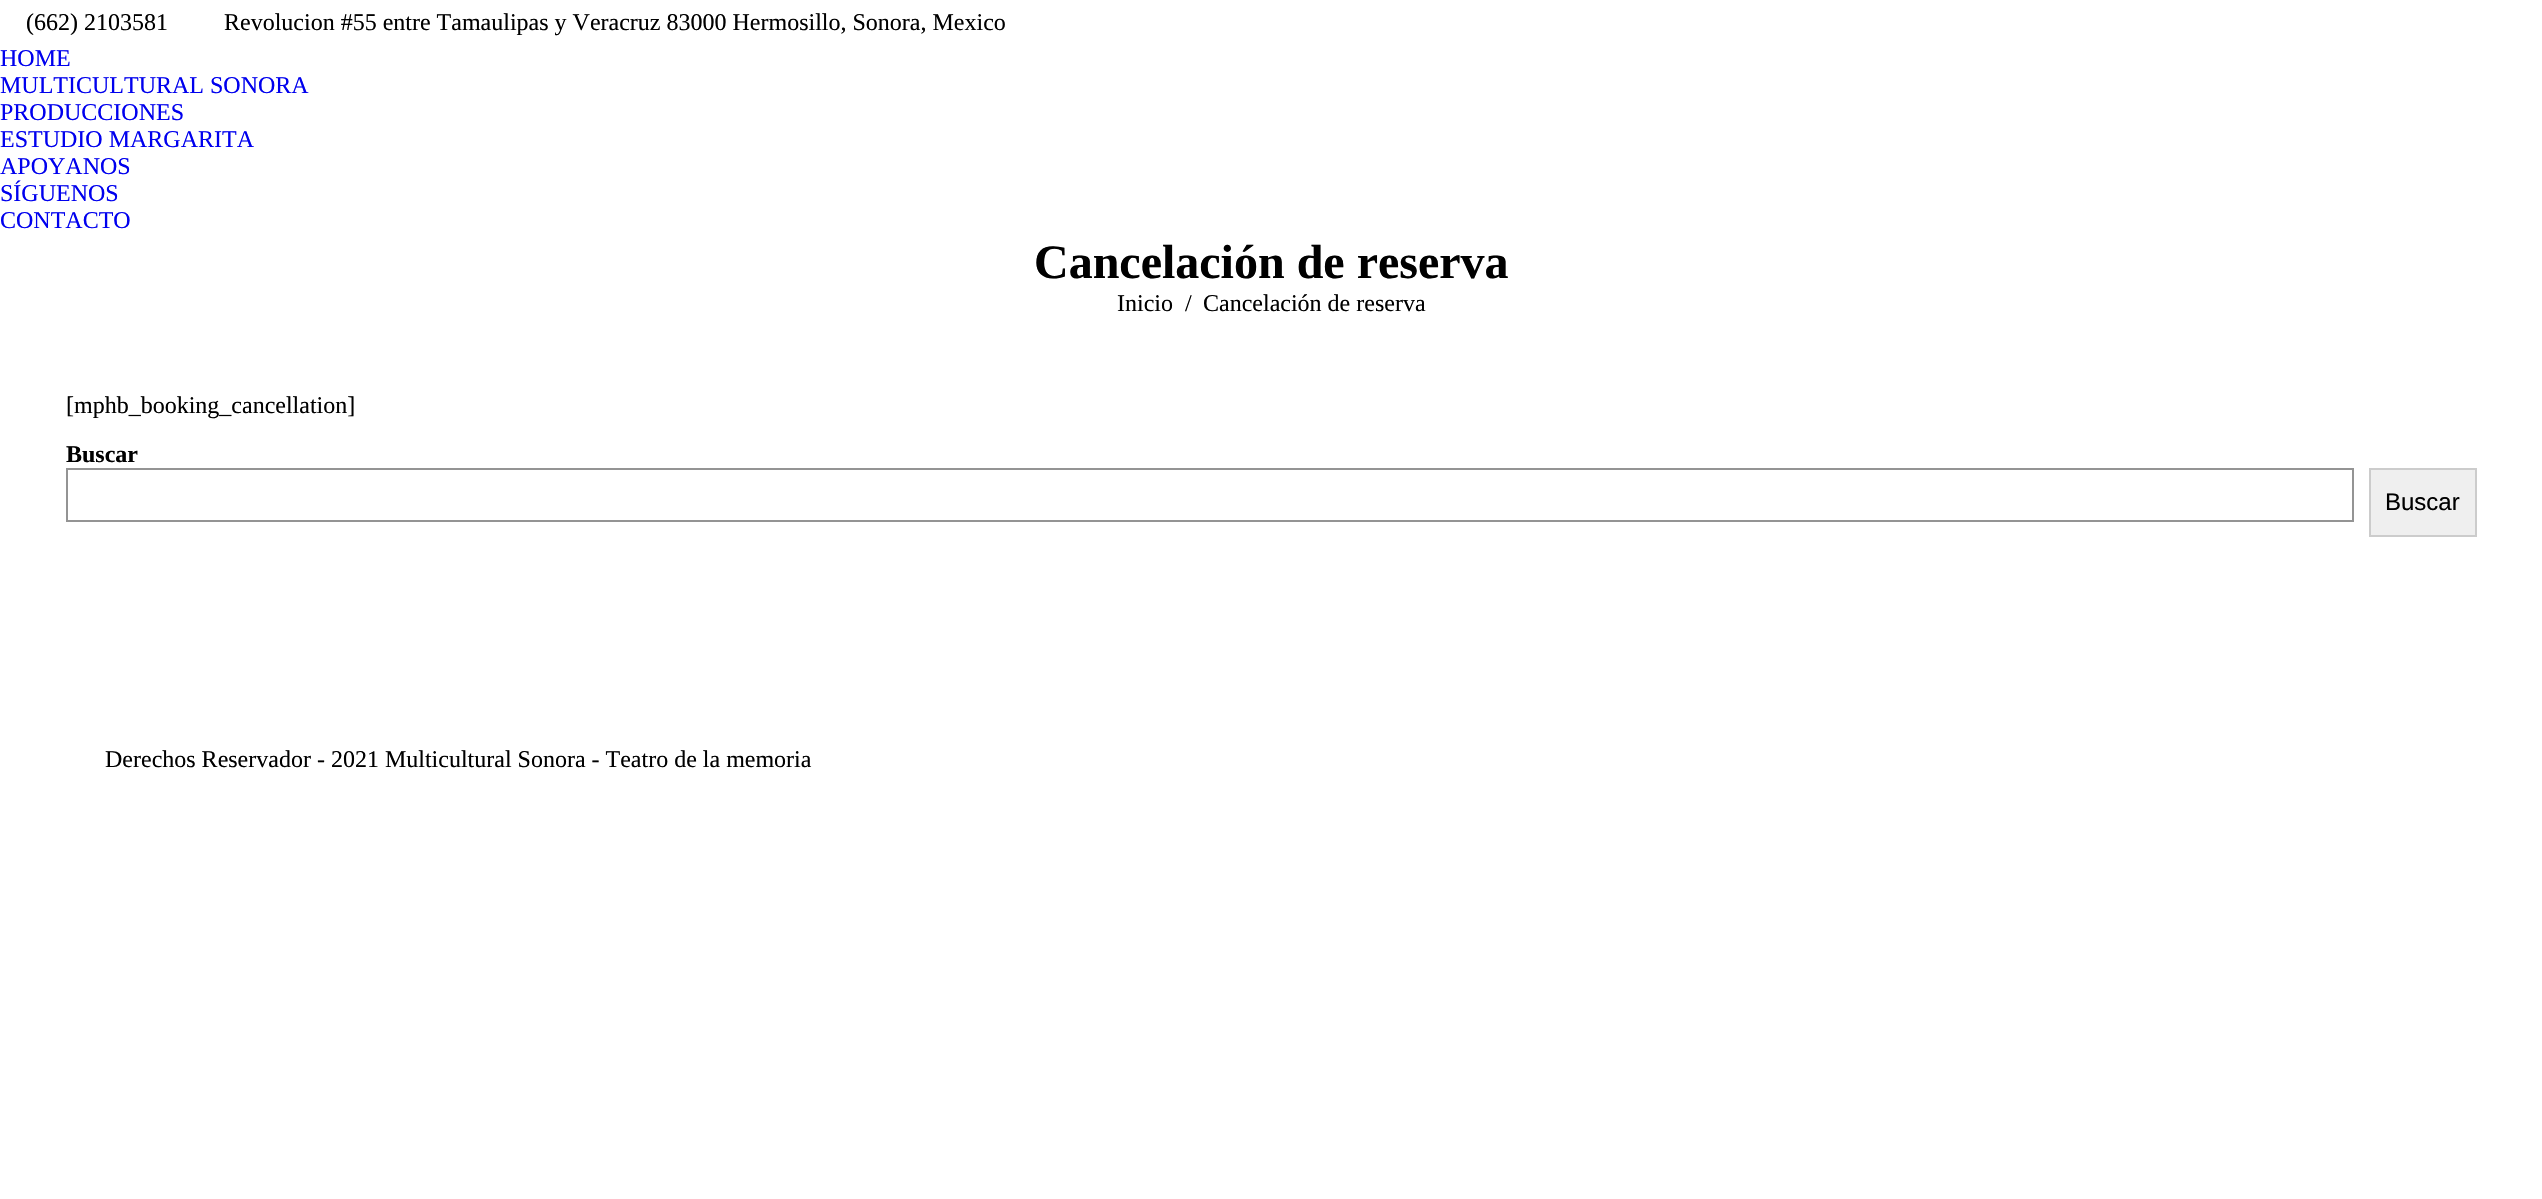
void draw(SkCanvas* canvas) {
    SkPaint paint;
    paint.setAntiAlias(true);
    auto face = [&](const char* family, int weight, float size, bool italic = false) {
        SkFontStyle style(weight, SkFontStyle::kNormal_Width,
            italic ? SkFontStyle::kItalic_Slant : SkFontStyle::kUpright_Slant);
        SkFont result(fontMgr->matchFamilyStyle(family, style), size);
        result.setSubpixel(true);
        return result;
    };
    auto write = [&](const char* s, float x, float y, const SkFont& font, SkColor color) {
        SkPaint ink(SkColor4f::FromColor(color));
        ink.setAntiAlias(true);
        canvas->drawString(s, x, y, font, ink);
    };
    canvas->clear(SK_ColorWHITE);
    auto kFont1 = face("Liberation Serif", 400, 24);
    write("(662) 2103581", 26, 30, kFont1, SK_ColorBLACK);
    write("Revolucion #55 entre Tamaulipas y Veracruz 83000 Hermosillo, Sonora, Mexico", 224, 30, kFont1, SK_ColorBLACK);
    write("HOME", 0, 66, kFont1, SkColorSetRGB(0, 0, 238));
    write("MULTICULTURAL SONORA", 0, 93, kFont1, SkColorSetRGB(0, 0, 238));
    write("PRODUCCIONES", 0, 120, kFont1, SkColorSetRGB(0, 0, 238));
    write("ESTUDIO MARGARITA", 0, 147, kFont1, SkColorSetRGB(0, 0, 238));
    write("APOYANOS", 0, 174, kFont1, SkColorSetRGB(0, 0, 238));
    write("SÍGUENOS", 0, 201, kFont1, SkColorSetRGB(0, 0, 238));
    write("CONTACTO", 0, 228, kFont1, SkColorSetRGB(0, 0, 238));
    auto kFont2 = face("Liberation Serif", 700, 48);
    write("Cancelación de reserva", 1034, 278, kFont2, SK_ColorBLACK);
    write("Inicio", 1117, 311, kFont1, SK_ColorBLACK);
    write("/", 1185, 311, kFont1, SK_ColorBLACK);
    write("Cancelación de reserva", 1203, 311, kFont1, SK_ColorBLACK);
    write("[mphb_booking_cancellation]", 66, 413, kFont1, SK_ColorBLACK);
    auto kFont3 = face("Liberation Serif", 700, 24);
    write("Buscar", 66, 462, kFont3, SK_ColorBLACK);
    paint.setStyle(SkPaint::kStroke_Style);
    paint.setStrokeWidth(2);
    paint.setColor(SkColorSetRGB(148, 148, 148));
    canvas->drawRect(SkRect::MakeXYWH(67, 469, 2286, 52), paint);
    paint.setStyle(SkPaint::kFill_Style);
    paint.setColor(SkColorSetRGB(239, 239, 239));
    canvas->drawRect(SkRect::MakeXYWH(2370, 469, 106, 67), paint);
    paint.setStyle(SkPaint::kStroke_Style);
    paint.setColor(SkColorSetRGB(204, 204, 204));
    canvas->drawRect(SkRect::MakeXYWH(2370, 469, 106, 67), paint);
    auto kFont4 = face("Liberation Sans", 400, 24);
    write("Buscar", 2385, 510, kFont4, SK_ColorBLACK);
    write("Derechos Reservador - 2021 Multicultural Sonora - Teatro de la memoria", 105, 767, kFont1, SK_ColorBLACK);
}
